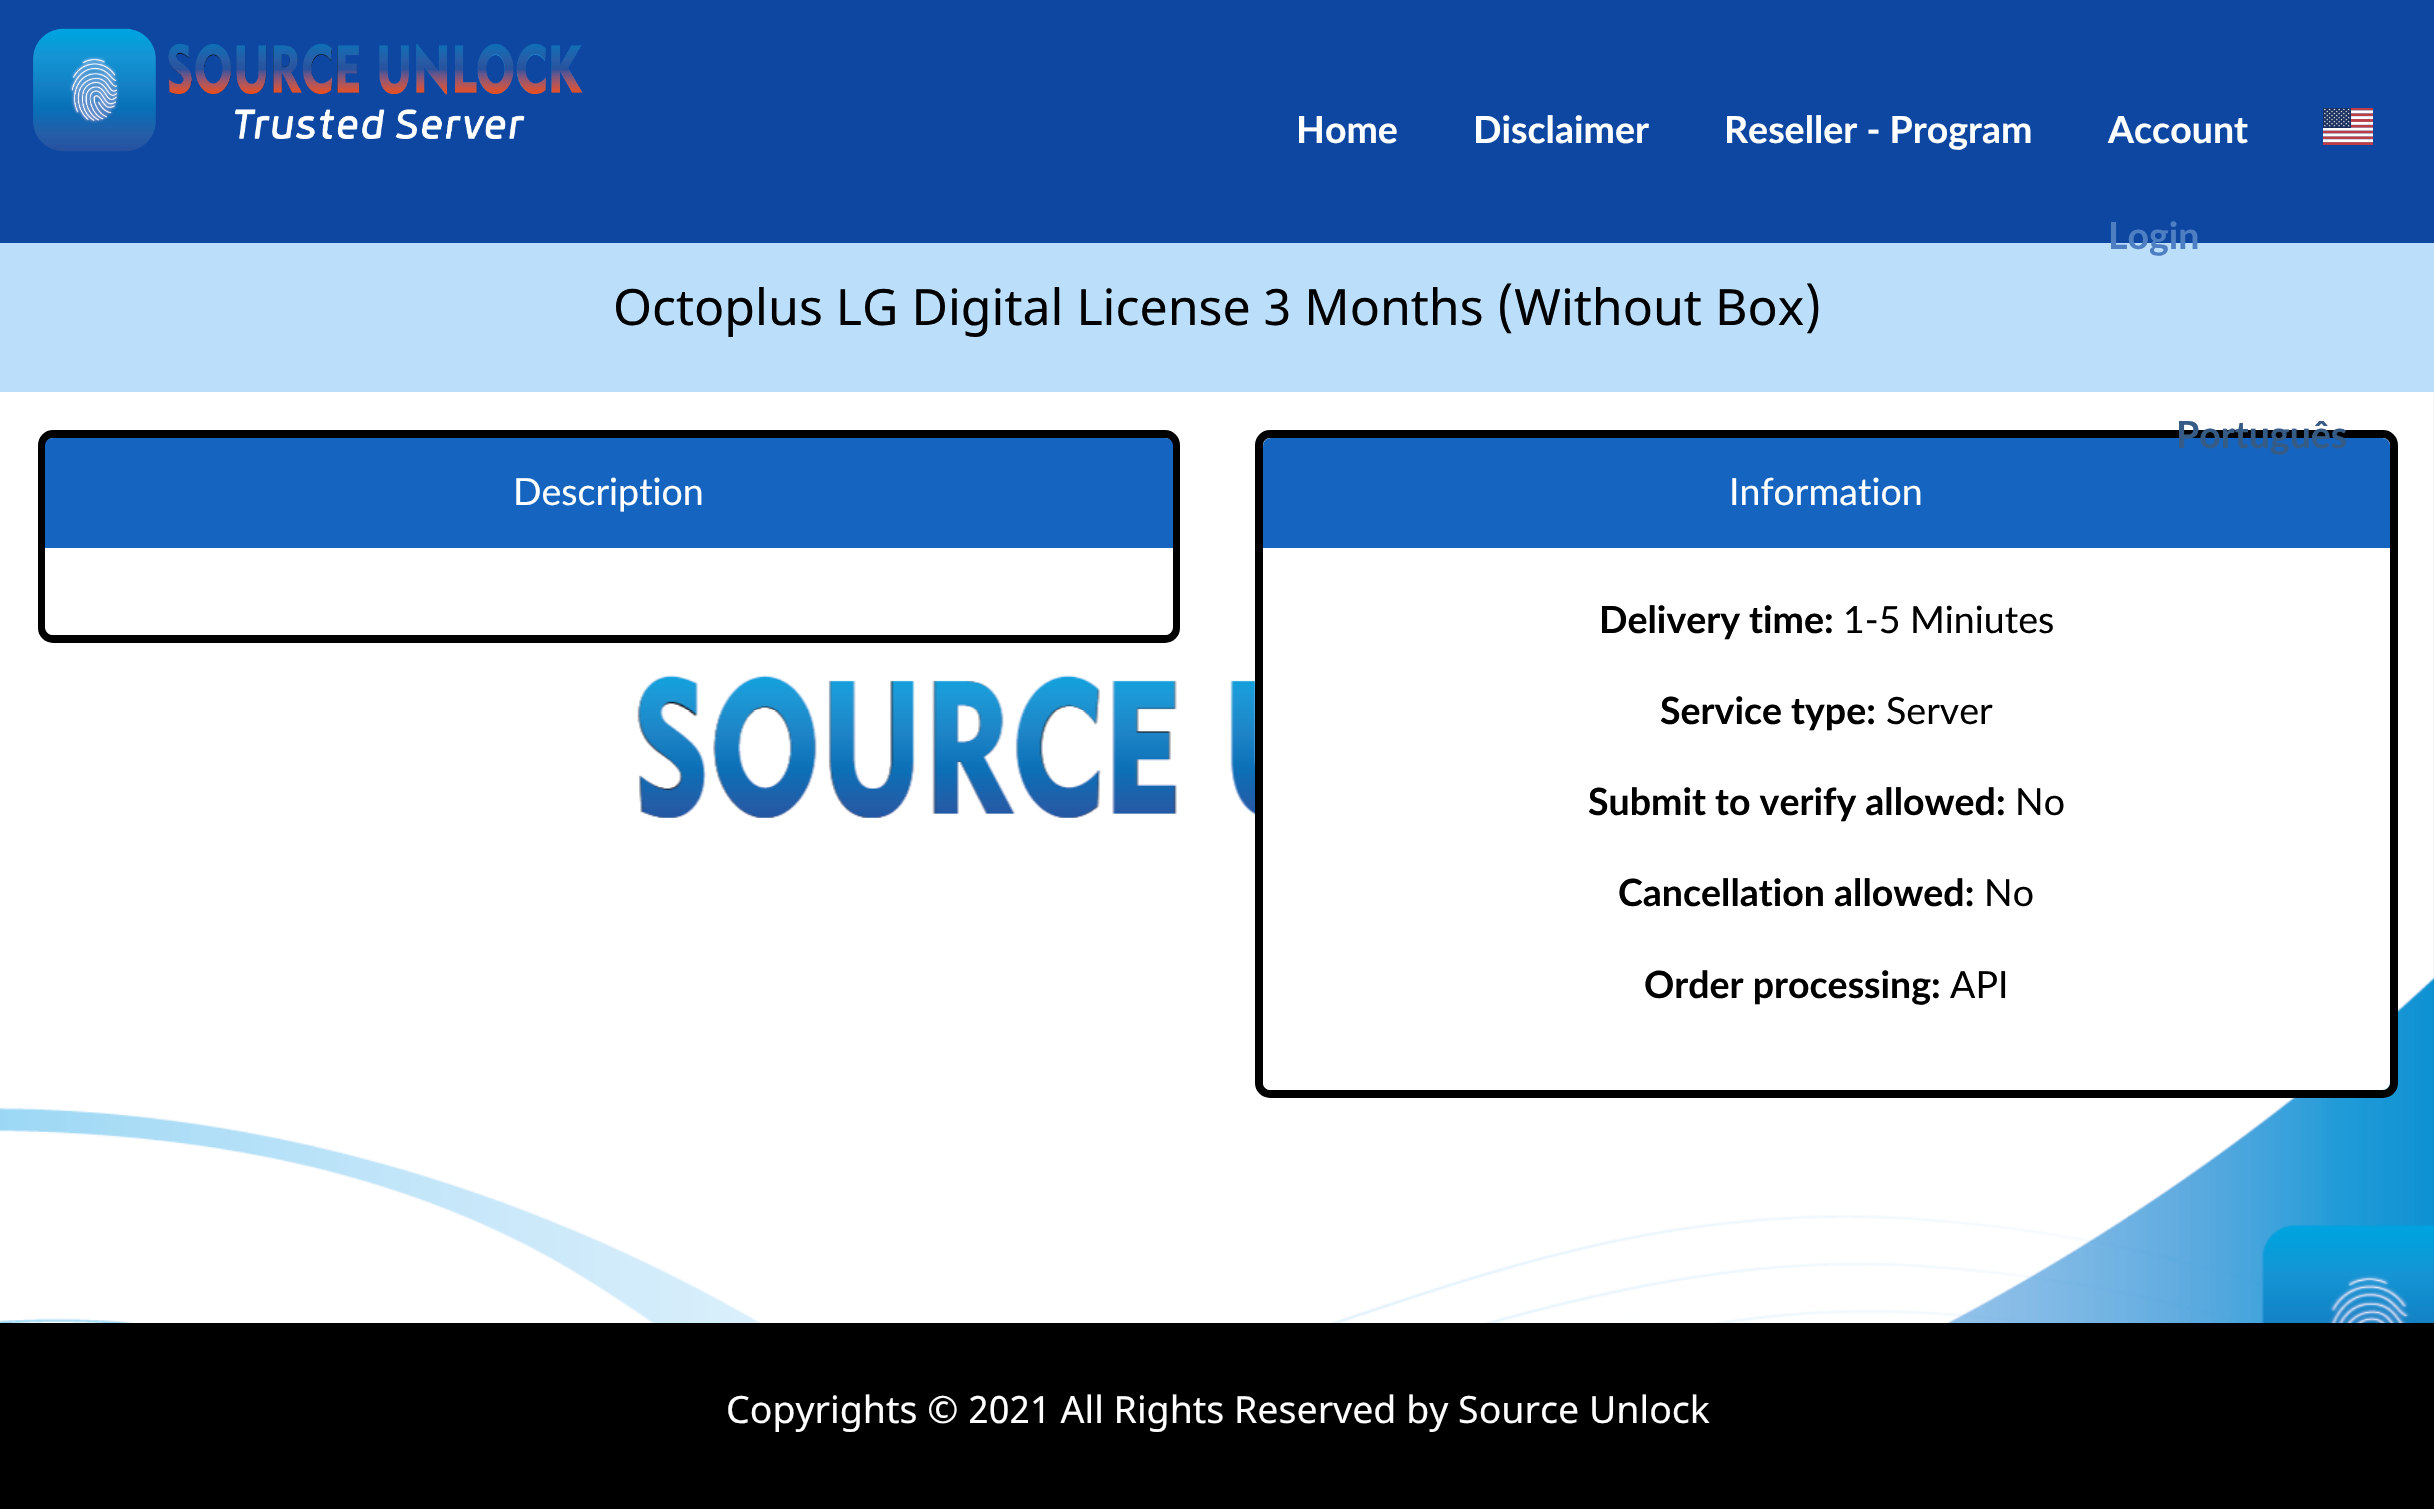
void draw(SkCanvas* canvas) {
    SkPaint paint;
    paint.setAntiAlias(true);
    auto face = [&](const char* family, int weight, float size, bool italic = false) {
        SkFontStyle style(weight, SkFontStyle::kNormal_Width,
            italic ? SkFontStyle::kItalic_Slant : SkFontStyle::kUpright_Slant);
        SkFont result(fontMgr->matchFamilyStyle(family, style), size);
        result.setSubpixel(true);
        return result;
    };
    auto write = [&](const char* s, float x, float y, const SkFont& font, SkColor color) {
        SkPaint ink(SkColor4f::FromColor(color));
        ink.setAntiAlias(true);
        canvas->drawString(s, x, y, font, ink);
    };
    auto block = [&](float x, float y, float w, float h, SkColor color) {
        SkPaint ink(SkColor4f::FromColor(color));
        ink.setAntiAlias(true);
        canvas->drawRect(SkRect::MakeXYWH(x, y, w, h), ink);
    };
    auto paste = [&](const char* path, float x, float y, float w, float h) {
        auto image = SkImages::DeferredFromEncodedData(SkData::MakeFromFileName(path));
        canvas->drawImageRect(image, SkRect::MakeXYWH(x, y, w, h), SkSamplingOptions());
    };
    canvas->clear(SK_ColorBLACK);
    block(0, 0, 2434, 243, SkColorSetRGB(13, 71, 161));
    paste("pic1.png", 33, 28, 550, 124);
    auto kFont1 = face("Lato", 700, 37.5f);
    write("Home", 1296, 143, kFont1, SK_ColorWHITE);
    write("Disclaimer", 1473, 143, kFont1, SK_ColorWHITE);
    write("Reseller - Program", 1724, 143, kFont1, SK_ColorWHITE);
    write("Account", 2108, 143, kFont1, SK_ColorWHITE);
    block(0, 243, 2434, 150, SkColorSetRGB(187, 222, 251));
    write("Login", 2108, 249, kFont1, SkColorSetRGB(78, 127, 195));
    paste("pic2.png", 2323, 108, 50, 37);
    paste("pic3.png", 0, 392, 2434, 931);
    paint.setStyle(SkPaint::kStroke_Style);
    paint.setStrokeWidth(8);
    paint.setColor(SK_ColorBLACK);
    canvas->drawRoundRect(SkRect::MakeXYWH(1259, 434, 1135, 660), 11, 11, paint);
    paint.setStyle(SkPaint::kFill_Style);
    paint.setColor(SkColorSetRGB(21, 101, 192));
    canvas->drawPath(SkPathBuilder().moveTo(1271, 438).lineTo(2382, 438).cubicTo(2386.5f, 438, 2390, 441.5f, 2390, 446).lineTo(2390, 548).lineTo(1263, 548).lineTo(1263, 446).cubicTo(1263, 441.5f, 1266.5f, 438, 1271, 438).close().detach(), paint);
    write("Português", 2176, 448, kFont1, SkColorSetRGB(54, 91, 132));
    auto kFont2 = face("Noto Sans", 400, 50);
    write("Octoplus LG Digital License 3 Months (Without Box)", 613, 325, kFont2, SK_ColorBLACK);
    paint.setStyle(SkPaint::kStroke_Style);
    paint.setColor(SK_ColorBLACK);
    canvas->drawRoundRect(SkRect::MakeXYWH(42, 434, 1134, 205), 11, 11, paint);
    paint.setStyle(SkPaint::kFill_Style);
    paint.setColor(SkColorSetRGB(21, 101, 192));
    canvas->drawPath(SkPathBuilder().moveTo(53, 438).lineTo(1165, 438).cubicTo(1169.5f, 438, 1173, 441.5f, 1173, 446).lineTo(1173, 548).lineTo(45, 548).lineTo(45, 446).cubicTo(45, 441.5f, 48.5f, 438, 53, 438).close().detach(), paint);
    auto kFont3 = face("Lato", 400, 37.5f);
    write("Description", 513, 505, kFont3, SK_ColorWHITE);
    paint.setColor(SK_ColorWHITE);
    canvas->drawPath(SkPathBuilder().moveTo(45, 548).lineTo(1173, 548).lineTo(1173, 627).cubicTo(1173, 631.5f, 1169.5f, 635, 1165, 635).lineTo(53, 635).cubicTo(48.5f, 635, 45, 631.5f, 45, 627).close().detach(), paint);
    write("Information", 1729, 505, kFont3, SK_ColorWHITE);
    canvas->drawPath(SkPathBuilder().moveTo(1263, 548).lineTo(2390, 548).lineTo(2390, 1082).cubicTo(2390, 1086.5f, 2386.5f, 1090, 2382, 1090).lineTo(1271, 1090).cubicTo(1266.5f, 1090, 1263, 1086.5f, 1263, 1082).close().detach(), paint);
    write("Delivery time:", 1599, 633, kFont1, SK_ColorBLACK);
    write("1-5 Miniutes", 1843, 633, kFont3, SK_ColorBLACK);
    write("Service type:", 1660, 724, kFont1, SK_ColorBLACK);
    write("Server", 1886, 724, kFont3, SK_ColorBLACK);
    write("Submit to verify allowed:", 1588, 815, kFont1, SK_ColorBLACK);
    write("No", 2015, 815, kFont3, SK_ColorBLACK);
    write("Cancellation allowed:", 1618, 906, kFont1, SK_ColorBLACK);
    write("No", 1984, 906, kFont3, SK_ColorBLACK);
    write("Order processing:", 1644, 998, kFont1, SK_ColorBLACK);
    write("API", 1950, 998, kFont3, SK_ColorBLACK);
    auto kFont4 = face("Noto Sans", 400, 37.5f);
    write("Copyrights © 2021 All Rights Reserved by Source Unlock", 726, 1423, kFont4, SK_ColorWHITE);
}
